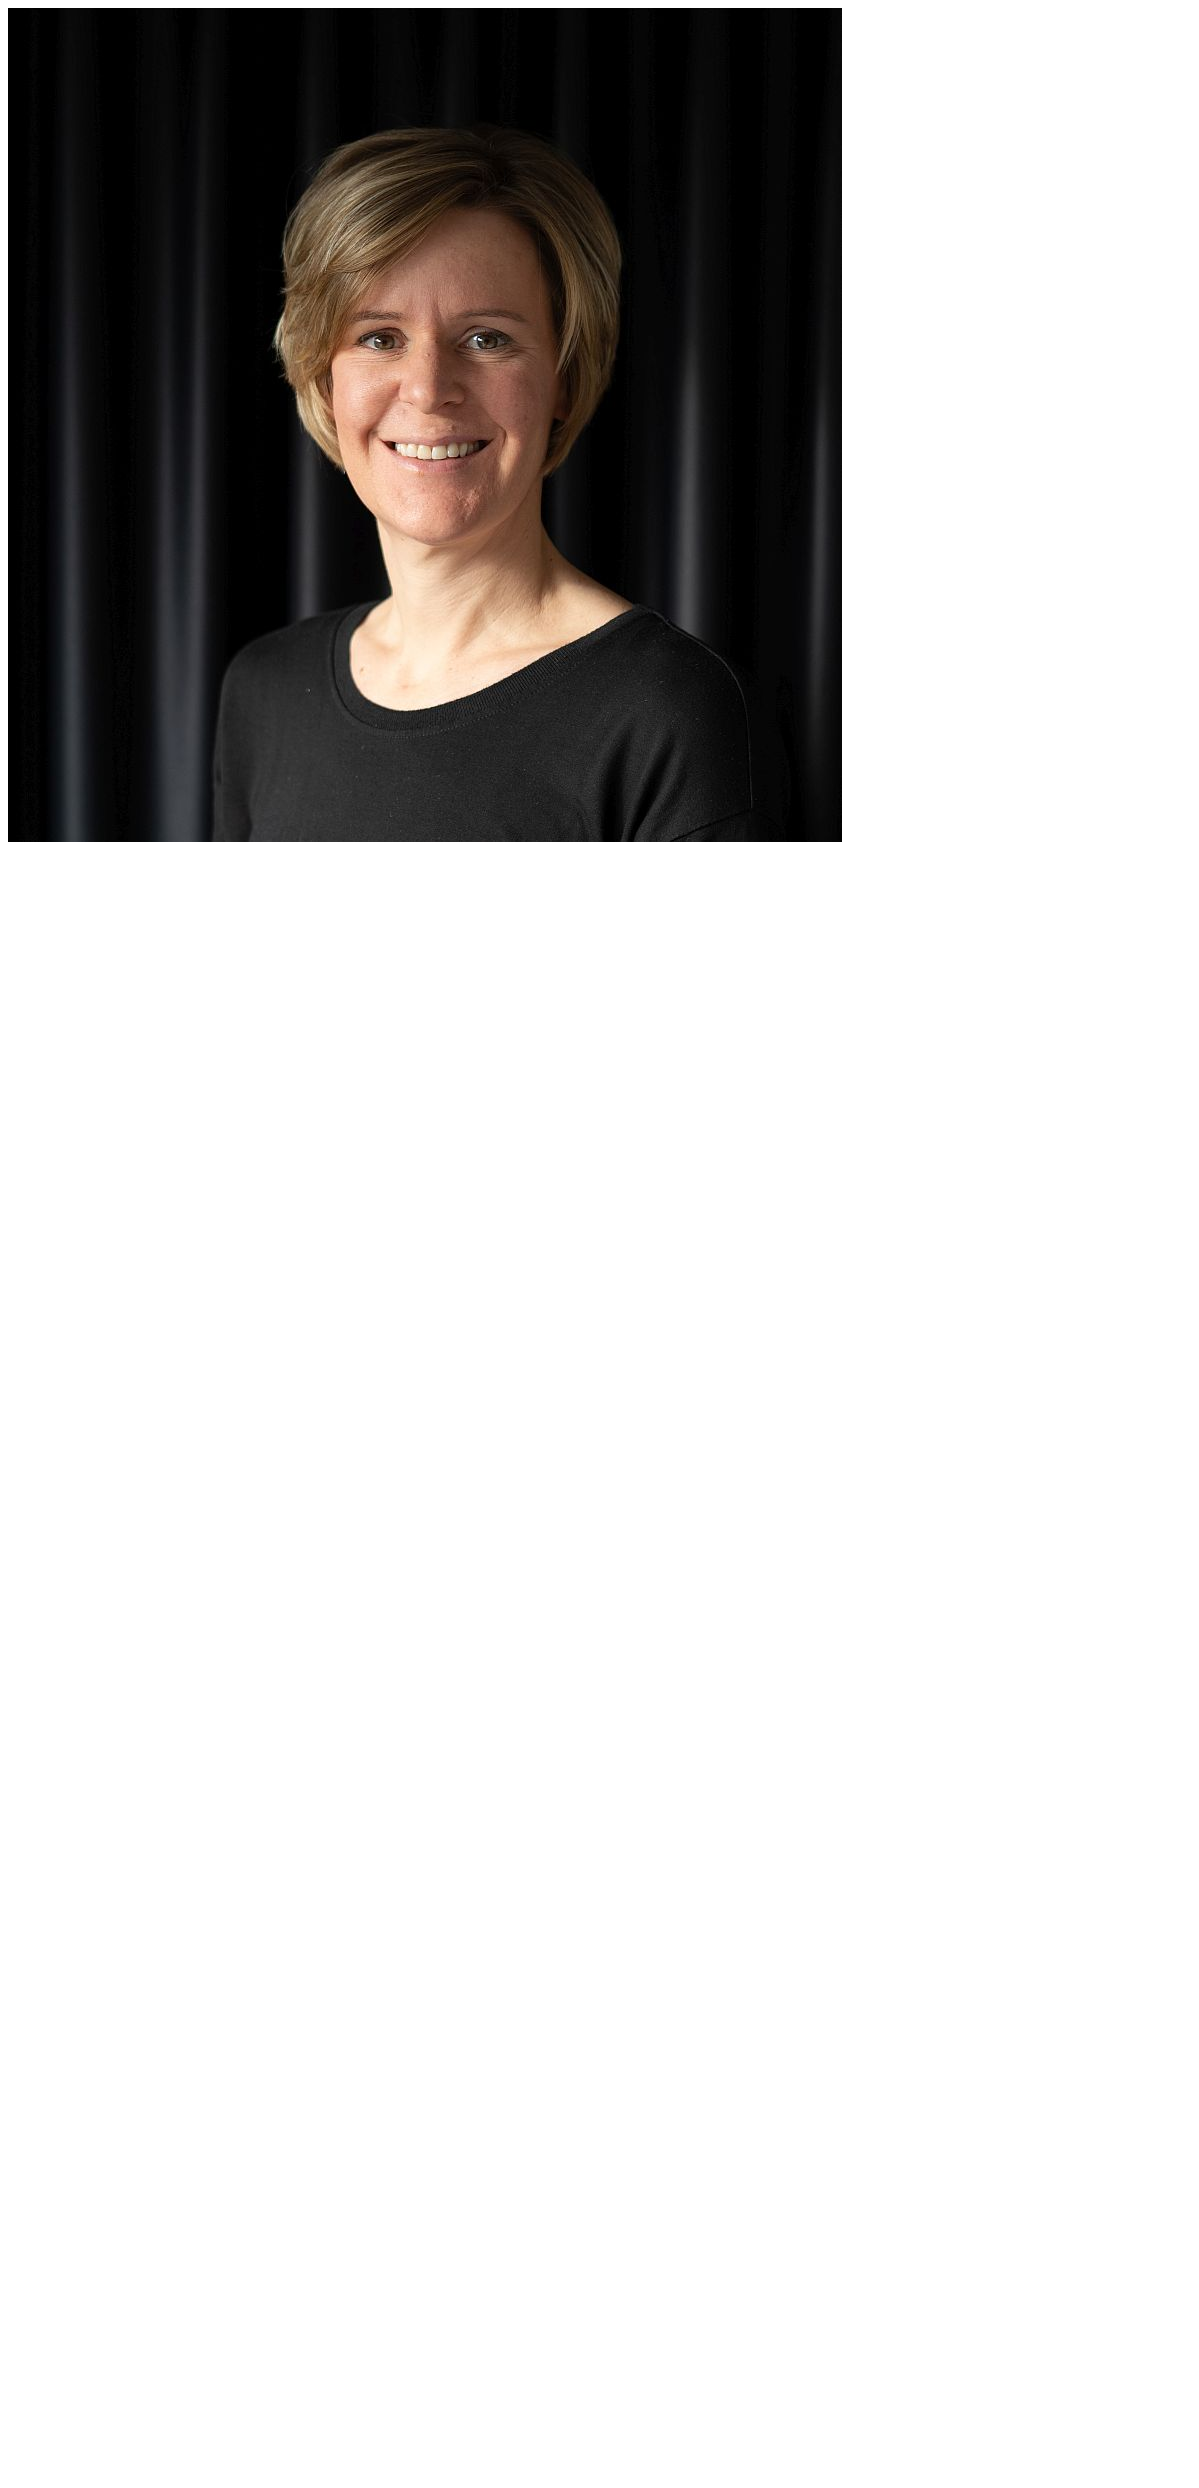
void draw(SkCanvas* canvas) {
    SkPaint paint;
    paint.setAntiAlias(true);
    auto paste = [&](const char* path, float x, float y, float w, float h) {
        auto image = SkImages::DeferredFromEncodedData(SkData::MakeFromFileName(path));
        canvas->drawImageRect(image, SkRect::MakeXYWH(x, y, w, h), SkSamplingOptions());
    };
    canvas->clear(SK_ColorWHITE);
    paste("pic1.png", 8, 8, 834, 834);
}
